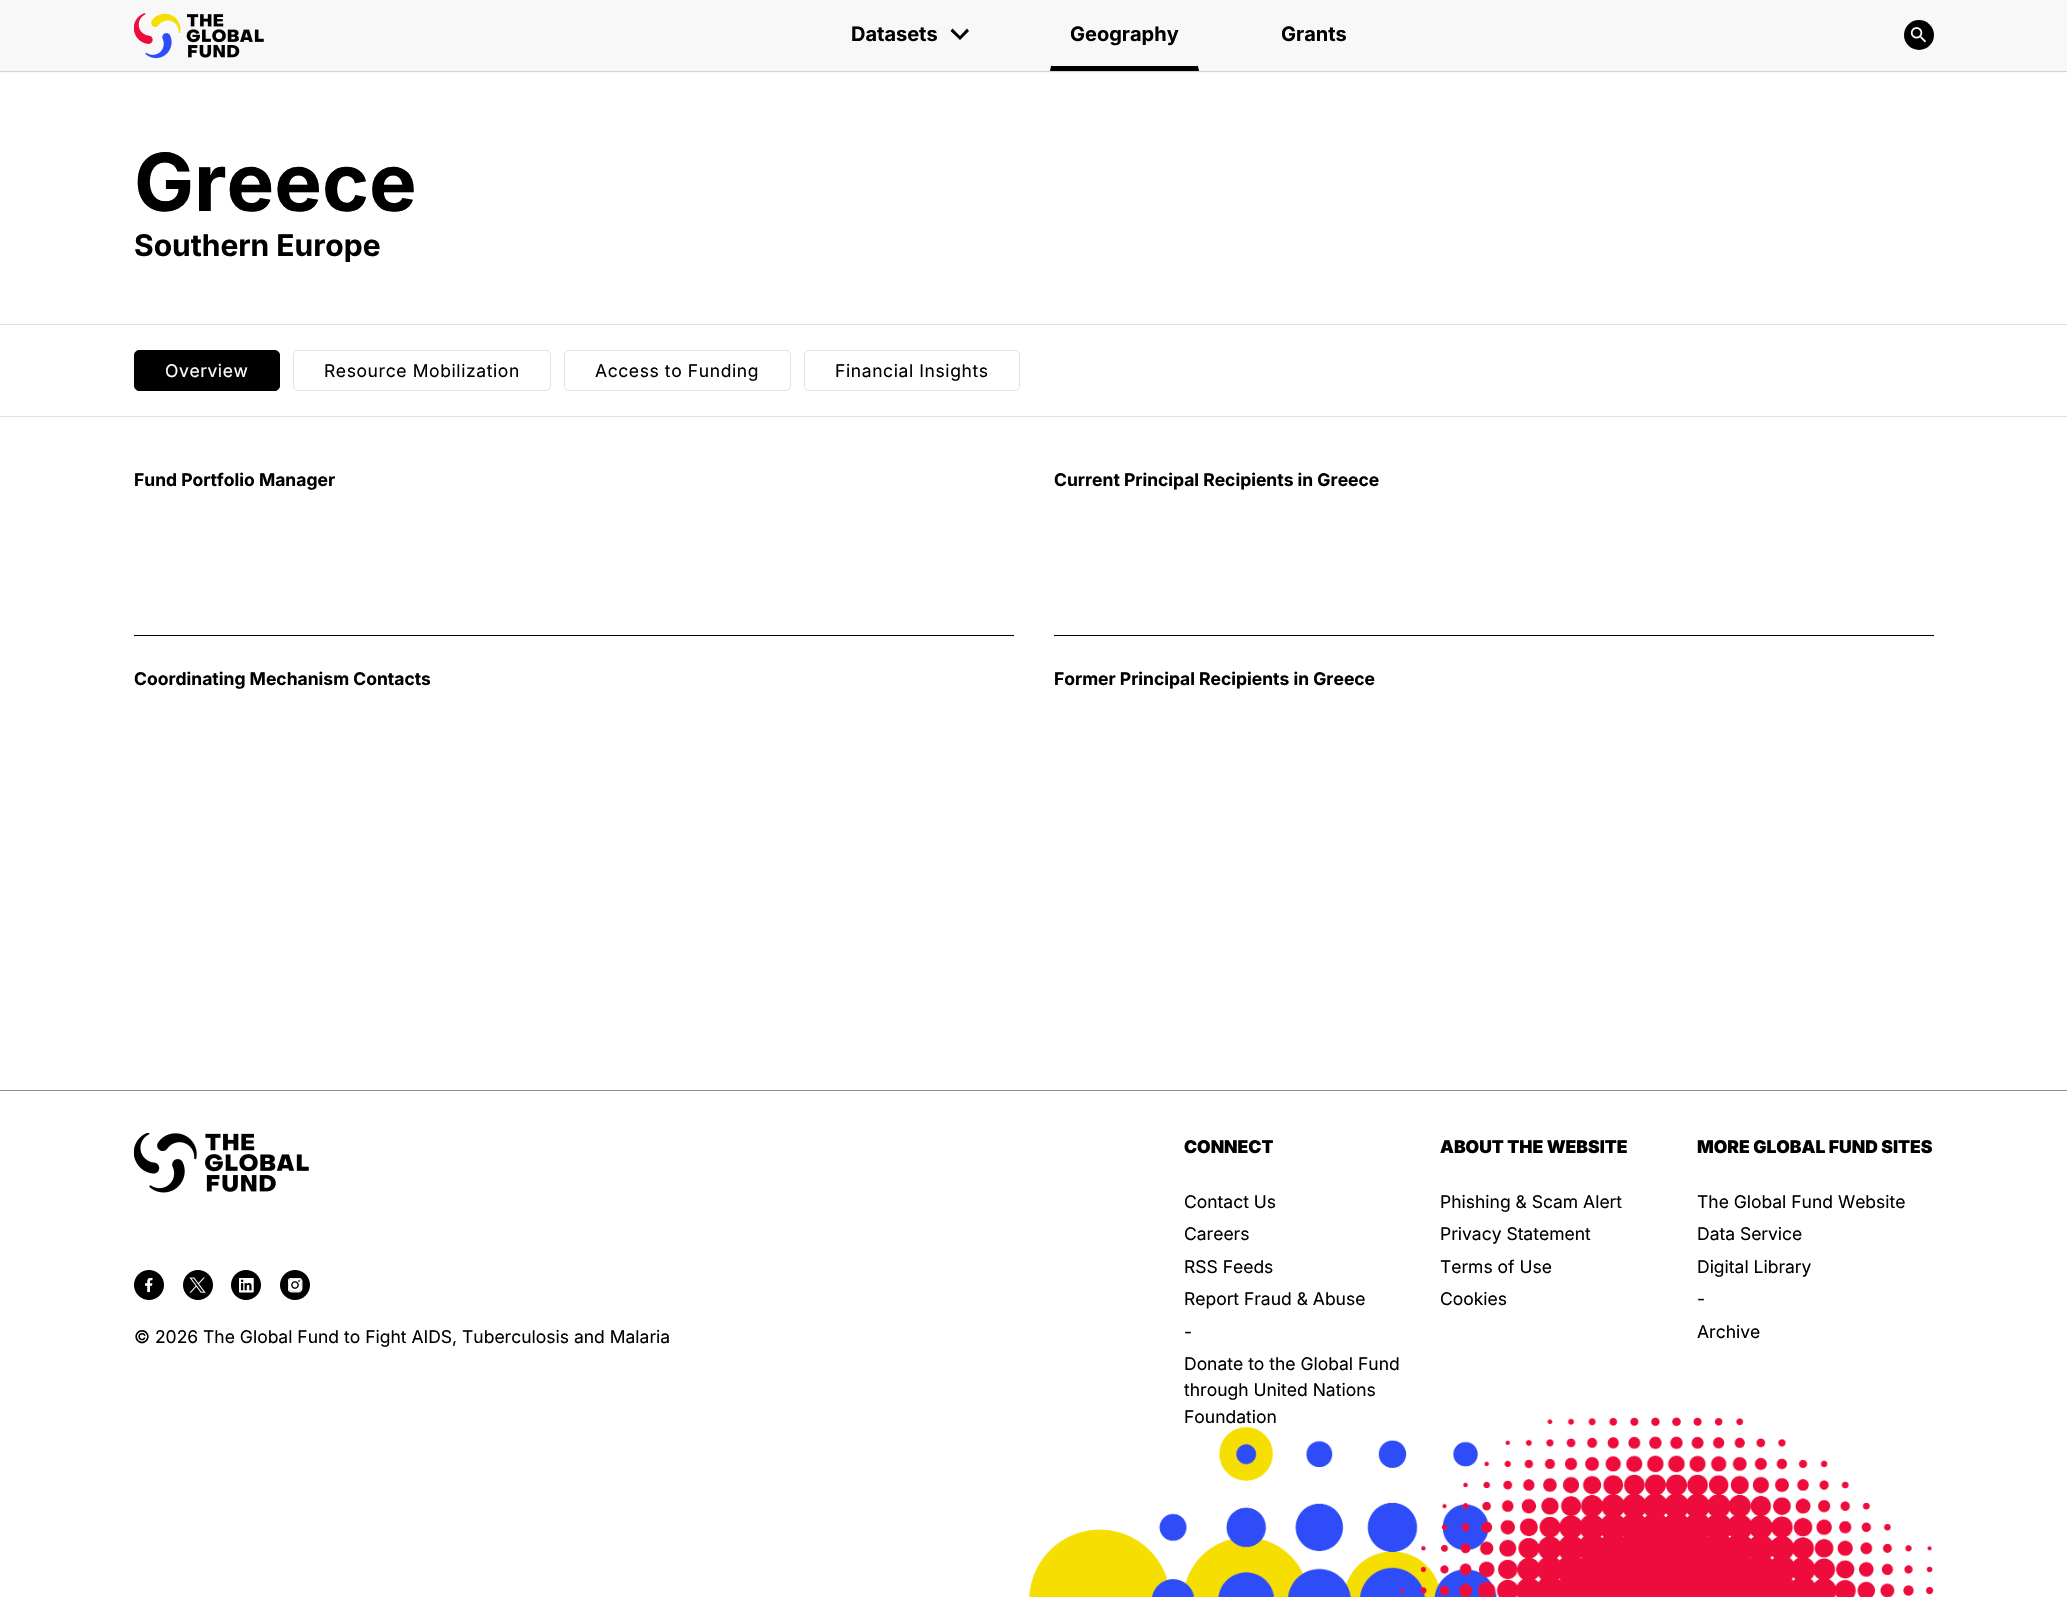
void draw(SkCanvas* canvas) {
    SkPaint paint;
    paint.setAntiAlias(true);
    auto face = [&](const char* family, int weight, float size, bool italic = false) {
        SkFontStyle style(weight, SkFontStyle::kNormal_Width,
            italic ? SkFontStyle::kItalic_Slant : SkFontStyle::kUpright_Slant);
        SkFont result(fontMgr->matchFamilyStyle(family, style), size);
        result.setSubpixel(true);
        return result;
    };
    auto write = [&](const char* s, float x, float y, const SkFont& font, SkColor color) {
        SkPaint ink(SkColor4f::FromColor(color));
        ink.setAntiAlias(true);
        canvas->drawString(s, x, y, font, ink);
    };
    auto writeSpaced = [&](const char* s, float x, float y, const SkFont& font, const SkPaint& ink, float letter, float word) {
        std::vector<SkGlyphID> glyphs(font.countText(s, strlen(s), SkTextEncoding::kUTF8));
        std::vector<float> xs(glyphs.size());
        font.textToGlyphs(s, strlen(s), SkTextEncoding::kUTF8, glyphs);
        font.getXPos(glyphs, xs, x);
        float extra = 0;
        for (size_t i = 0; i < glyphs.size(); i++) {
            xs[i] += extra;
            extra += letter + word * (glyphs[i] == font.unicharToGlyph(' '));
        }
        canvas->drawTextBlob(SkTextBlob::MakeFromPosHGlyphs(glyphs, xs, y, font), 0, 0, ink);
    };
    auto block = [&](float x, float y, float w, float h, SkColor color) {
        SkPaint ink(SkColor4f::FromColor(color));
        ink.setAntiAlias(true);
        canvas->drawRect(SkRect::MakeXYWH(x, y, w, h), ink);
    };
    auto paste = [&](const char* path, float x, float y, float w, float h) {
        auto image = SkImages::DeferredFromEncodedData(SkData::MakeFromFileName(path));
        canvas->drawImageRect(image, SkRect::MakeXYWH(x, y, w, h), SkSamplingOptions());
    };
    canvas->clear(SK_ColorWHITE);
    block(0, 0, 2067, 73, SkColorSetRGB(248, 248, 248));
    block(0, 71, 2067, 1, SkColorSetRGB(207, 212, 218));
    paste("pic1.png", 134, 13, 130, 46);
    auto kFont1 = face("Inter", 700, 20);
    write("Datasets", 851, 41, kFont1, SK_ColorBLACK);
    paint.setColor(SK_ColorBLACK);
    canvas->drawPath(SkPathBuilder().moveTo(969, 31).lineTo(967, 28.5f).lineTo(960, 36).lineTo(952.5f, 28.5f).lineTo(950.5f, 31).lineTo(960, 40).close().detach(), paint);
    canvas->drawPath(SkPathBuilder().moveTo(1199, 71).lineTo(1050, 71).lineTo(1051, 66).lineTo(1198, 66).close().detach(), paint);
    write("Geography", 1070, 41, kFont1, SK_ColorBLACK);
    write("Grants", 1281, 41, kFont1, SK_ColorBLACK);
    canvas->drawCircle(1919, 35, 15, paint);
    paste("pic2.png", 1910, 27, 17, 16);
    auto kFont2 = face("Inter", 700, 80);
    write("Greece", 134, 211, kFont2, SK_ColorBLACK);
    auto kFont3 = face("Inter", 700, 30);
    write("Southern Europe", 134, 256, kFont3, SK_ColorBLACK);
    block(0, 324, 2067, 1, SkColorSetRGB(224, 224, 224));
    canvas->drawRoundRect(SkRect::MakeXYWH(134.5f, 350.5f, 145, 40), 4.5f, 4.5f, paint);
    paint.setStyle(SkPaint::kStroke_Style);
    paint.setStrokeWidth(1);
    canvas->drawRoundRect(SkRect::MakeXYWH(134.5f, 350.5f, 145, 40), 4.5f, 4.5f, paint);
    auto kFont4 = face("Inter", 400, 17.5f);
    paint.setStyle(SkPaint::kFill_Style);
    paint.setColor(SK_ColorWHITE);
    writeSpaced("Overview", 165, 377, kFont4, paint, 0.6f, 0);
    paint.setStyle(SkPaint::kStroke_Style);
    paint.setColor(SkColorSetRGB(223, 227, 229));
    canvas->drawRoundRect(SkRect::MakeXYWH(293.5f, 350.5f, 257, 40), 4.5f, 4.5f, paint);
    paint.setStyle(SkPaint::kFill_Style);
    paint.setColor(SK_ColorBLACK);
    writeSpaced("Resource Mobilization", 324, 377, kFont4, paint, 0.6f, 0);
    paint.setStyle(SkPaint::kStroke_Style);
    paint.setColor(SkColorSetRGB(223, 227, 229));
    canvas->drawRoundRect(SkRect::MakeXYWH(564.5f, 350.5f, 226, 40), 4.5f, 4.5f, paint);
    paint.setStyle(SkPaint::kFill_Style);
    paint.setColor(SK_ColorBLACK);
    writeSpaced("Access to Funding", 595, 377, kFont4, paint, 0.6f, 0);
    paint.setStyle(SkPaint::kStroke_Style);
    paint.setColor(SkColorSetRGB(223, 227, 229));
    canvas->drawRoundRect(SkRect::MakeXYWH(804.5f, 350.5f, 215, 40), 4.5f, 4.5f, paint);
    paint.setStyle(SkPaint::kFill_Style);
    paint.setColor(SK_ColorBLACK);
    writeSpaced("Financial Insights", 835, 377, kFont4, paint, 0.6f, 0);
    block(0, 416, 2067, 1, SkColorSetRGB(224, 224, 224));
    auto kFont5 = face("Inter", 700, 17.5f);
    write("Fund Portfolio Manager", 134, 486, kFont5, SK_ColorBLACK);
    block(134, 635, 880, 1, SK_ColorBLACK);
    write("Coordinating Mechanism Contacts", 134, 685, kFont5, SK_ColorBLACK);
    write("Current Principal Recipients in Greece", 1054, 486, kFont5, SK_ColorBLACK);
    block(1054, 635, 880, 1, SK_ColorBLACK);
    write("Former Principal Recipients in Greece", 1054, 685, kFont5, SK_ColorBLACK);
    block(0, 1090, 2067, 1, SkColorSetRGB(134, 142, 150));
    paste("pic3.png", 134, 1133, 175, 60);
    paste("pic4.png", 134, 1270, 30, 30);
    paste("pic5.png", 183, 1270, 30, 30);
    paste("pic6.png", 231, 1270, 30, 30);
    paste("pic7.png", 280, 1270, 30, 30);
    write("© 2026 The Global Fund to Fight AIDS, Tuberculosis and Malaria", 134, 1343, kFont4, SK_ColorBLACK);
    auto kFont6 = face("Inter", 900, 17.5f);
    write("CONNECT", 1184, 1153, kFont6, SK_ColorBLACK);
    write("Contact Us", 1184, 1208, kFont4, SK_ColorBLACK);
    write("Careers", 1184, 1240, kFont4, SK_ColorBLACK);
    write("RSS Feeds", 1184, 1273, kFont4, SK_ColorBLACK);
    write("Report Fraud & Abuse", 1184, 1305, kFont4, SK_ColorBLACK);
    write("-", 1184, 1338, kFont4, SK_ColorBLACK);
    write("Donate to the Global Fund", 1184, 1370, kFont4, SK_ColorBLACK);
    write("through United Nations", 1184, 1396, kFont4, SK_ColorBLACK);
    paste("pic8.png", 1029, 1417, 905, 180);
    write("Foundation", 1184, 1423, kFont4, SK_ColorBLACK);
    write("ABOUT THE WEBSITE", 1440, 1153, kFont6, SK_ColorBLACK);
    write("Phishing & Scam Alert", 1440, 1208, kFont4, SK_ColorBLACK);
    write("Privacy Statement", 1440, 1240, kFont4, SK_ColorBLACK);
    write("Terms of Use", 1440, 1273, kFont4, SK_ColorBLACK);
    write("Cookies", 1440, 1305, kFont4, SK_ColorBLACK);
    write("MORE GLOBAL FUND SITES", 1697, 1153, kFont6, SK_ColorBLACK);
    write("The Global Fund Website", 1697, 1208, kFont4, SK_ColorBLACK);
    write("Data Service", 1697, 1240, kFont4, SK_ColorBLACK);
    write("Digital Library", 1697, 1273, kFont4, SK_ColorBLACK);
    write("-", 1697, 1305, kFont4, SK_ColorBLACK);
    write("Archive", 1697, 1338, kFont4, SK_ColorBLACK);
}
